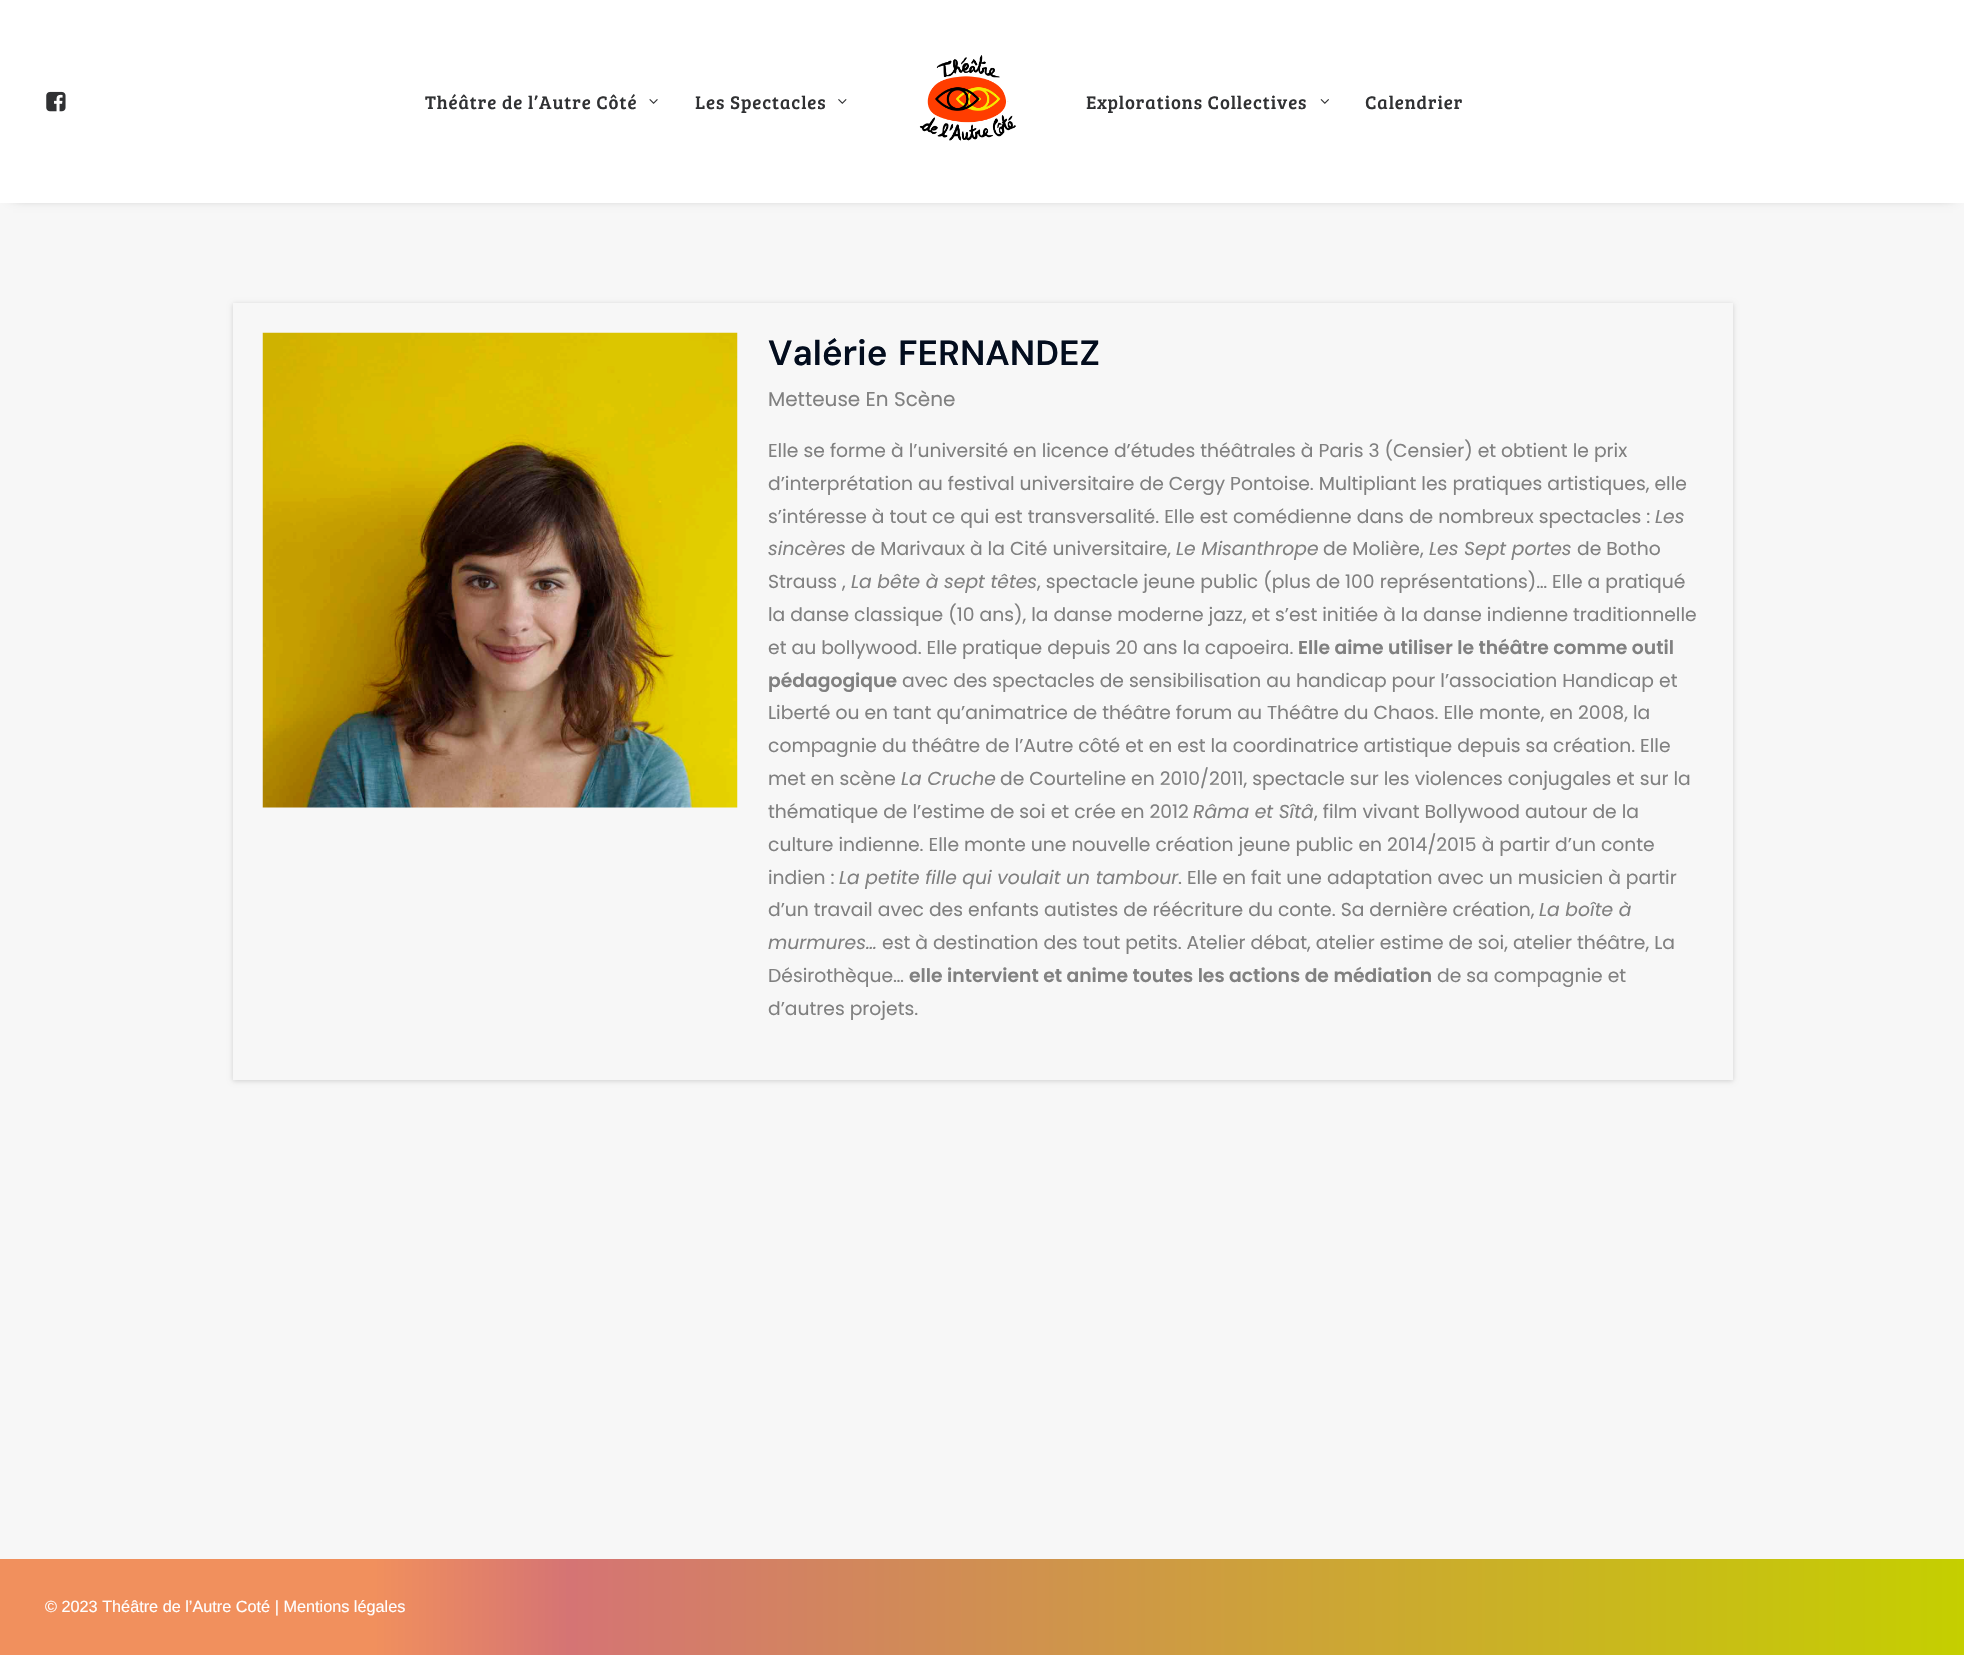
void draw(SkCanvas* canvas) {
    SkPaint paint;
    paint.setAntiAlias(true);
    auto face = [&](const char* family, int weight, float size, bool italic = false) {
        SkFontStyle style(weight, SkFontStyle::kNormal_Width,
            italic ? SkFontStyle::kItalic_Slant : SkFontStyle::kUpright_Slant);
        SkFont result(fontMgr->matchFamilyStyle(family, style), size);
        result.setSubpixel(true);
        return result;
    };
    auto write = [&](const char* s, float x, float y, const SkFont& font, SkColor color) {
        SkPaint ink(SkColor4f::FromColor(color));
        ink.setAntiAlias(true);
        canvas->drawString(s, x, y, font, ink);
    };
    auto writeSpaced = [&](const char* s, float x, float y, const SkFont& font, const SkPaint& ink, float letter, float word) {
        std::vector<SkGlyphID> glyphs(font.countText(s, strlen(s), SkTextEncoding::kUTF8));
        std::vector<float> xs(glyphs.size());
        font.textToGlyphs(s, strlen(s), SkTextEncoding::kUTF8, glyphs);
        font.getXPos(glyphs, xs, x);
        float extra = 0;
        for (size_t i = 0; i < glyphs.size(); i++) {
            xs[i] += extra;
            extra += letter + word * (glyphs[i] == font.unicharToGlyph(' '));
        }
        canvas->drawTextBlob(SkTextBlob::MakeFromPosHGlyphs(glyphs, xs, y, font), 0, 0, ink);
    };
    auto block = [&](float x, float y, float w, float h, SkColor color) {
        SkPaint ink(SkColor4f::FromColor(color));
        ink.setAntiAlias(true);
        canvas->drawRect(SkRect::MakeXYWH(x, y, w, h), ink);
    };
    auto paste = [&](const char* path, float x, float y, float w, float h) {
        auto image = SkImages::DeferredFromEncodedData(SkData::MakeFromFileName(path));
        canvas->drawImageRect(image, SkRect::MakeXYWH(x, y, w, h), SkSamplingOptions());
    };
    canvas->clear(SkColorSetRGB(247, 247, 247));
    paint.setColor(SkColorSetARGB(153, 0, 0, 0));
    paint.setMaskFilter(SkMaskFilter::MakeBlur(kNormal_SkBlurStyle, 6));
    canvas->drawRect(SkRect::MakeXYWH(13, 18, 1940, 177), paint);
    paint.setMaskFilter(nullptr);
    block(0, 0, 1964, 203, SK_ColorWHITE);
    paste("pic1.png", 46, 91, 20, 21);
    auto kFont1 = face("Bree Serif", 400, 18.75f);
    paint.setColor(SkColorSetRGB(48, 49, 51));
    writeSpaced("Théâtre de l’Autre Côté", 425, 109, kFont1, paint, 0.9f, 0);
    paste("pic2.png", 649, 99, 9, 5);
    writeSpaced("Les Spectacles", 695, 109, kFont1, paint, 0.9f, 0);
    paste("pic3.png", 838, 99, 9, 5);
    paste("pic4.png", 919, 55, 97, 86);
    writeSpaced("Explorations Collectives", 1086, 109, kFont1, paint, 0.9f, 0);
    paste("pic5.png", 1320, 99, 9, 5);
    writeSpaced("Calendrier", 1365, 109, kFont1, paint, 0.9f, 0);
    canvas->save();
    canvas->clipPath(SkPathBuilder(SkPathFillType::kEvenOdd).moveTo(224, 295).lineTo(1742, 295).lineTo(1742, 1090).lineTo(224, 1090).close().moveTo(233, 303).lineTo(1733, 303).lineTo(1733, 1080).lineTo(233, 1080).close().detach(), true);
    paint.setColor(SkColorSetARGB(41, 0, 0, 0));
    paint.setMaskFilter(SkMaskFilter::MakeBlur(kNormal_SkBlurStyle, 2.5f));
    canvas->drawRect(SkRect::MakeXYWH(233, 304, 1500, 777), paint);
    paint.setMaskFilter(nullptr);
    canvas->restore();
    paste("pic6.png", 262, 332, 476, 476);
    auto kFont2 = face("DM Sans", 600, 35);
    paint.setColor(SkColorSetRGB(3, 13, 30));
    writeSpaced("Valérie FERNANDEZ", 768, 365, kFont2, paint, 0, 2);
    auto kFont3 = face("Poppins", 400, 20);
    write("Metteuse En Scène", 768, 406, kFont3, SkColorSetRGB(128, 128, 128));
    auto kFont4 = face("Poppins", 400, 18.75f);
    write("Elle se forme à l’université en licence d’études théâtrales à Paris 3 (Censier) et obtient le prix", 768, 457, kFont4, SkColorSetRGB(128, 128, 128));
    write("d’interprétation au festival universitaire de Cergy Pontoise. Multipliant les pratiques artistiques, elle", 768, 490, kFont4, SkColorSetRGB(128, 128, 128));
    write("s’intéresse à tout ce qui est transversalité. Elle est comédienne dans de nombreux spectacles :", 768, 523, kFont4, SkColorSetRGB(128, 128, 128));
    auto kFont5 = face("Poppins", 400, 18.75f, true);
    write("Les", 1655, 523, kFont5, SkColorSetRGB(128, 128, 128));
    write("sincères", 768, 555, kFont5, SkColorSetRGB(128, 128, 128));
    write("de Marivaux à la Cité universitaire,", 851, 555, kFont4, SkColorSetRGB(128, 128, 128));
    write("Le Misanthrope", 1176, 555, kFont5, SkColorSetRGB(128, 128, 128));
    write("de Molière,", 1323, 555, kFont4, SkColorSetRGB(128, 128, 128));
    write("Les Sept portes", 1429, 555, kFont5, SkColorSetRGB(128, 128, 128));
    write("de Botho", 1577, 555, kFont4, SkColorSetRGB(128, 128, 128));
    write("Strauss ,", 768, 588, kFont4, SkColorSetRGB(128, 128, 128));
    write("La bête à sept têtes", 851, 588, kFont5, SkColorSetRGB(128, 128, 128));
    write(", spectacle jeune public (plus de 100 représentations)… Elle a pratiqué", 1037, 588, kFont4, SkColorSetRGB(128, 128, 128));
    write("la danse classique (10 ans), la danse moderne jazz, et s’est initiée à la danse indienne traditionnelle", 768, 621, kFont4, SkColorSetRGB(128, 128, 128));
    write("et au bollywood. Elle pratique depuis 20 ans la capoeira.", 768, 654, kFont4, SkColorSetRGB(128, 128, 128));
    auto kFont6 = face("Poppins", 600, 18.75f);
    write("Elle aime utiliser le théâtre comme outil", 1298, 654, kFont6, SkColorSetRGB(128, 128, 128));
    write("pédagogique", 768, 687, kFont6, SkColorSetRGB(128, 128, 128));
    write("avec des spectacles de sensibilisation au handicap pour l’association Handicap et", 902, 687, kFont4, SkColorSetRGB(128, 128, 128));
    write("Liberté ou en tant qu’animatrice de théâtre forum au Théâtre du Chaos. Elle monte, en 2008, la", 768, 719, kFont4, SkColorSetRGB(128, 128, 128));
    write("compagnie du théâtre de l’Autre côté et en est la coordinatrice artistique depuis sa création. Elle", 768, 752, kFont4, SkColorSetRGB(128, 128, 128));
    write("met en scène", 768, 785, kFont4, SkColorSetRGB(128, 128, 128));
    write("La Cruche", 901, 785, kFont5, SkColorSetRGB(128, 128, 128));
    write("de Courteline en 2010/2011, spectacle sur les violences conjugales et sur la", 1000, 785, kFont4, SkColorSetRGB(128, 128, 128));
    write("thématique de l’estime de soi et crée en 2012", 768, 818, kFont4, SkColorSetRGB(128, 128, 128));
    write("Râma et Sîtâ", 1193, 818, kFont5, SkColorSetRGB(128, 128, 128));
    write(", film vivant Bollywood autour de la", 1314, 818, kFont4, SkColorSetRGB(128, 128, 128));
    write("culture indienne. Elle monte une nouvelle création jeune public en 2014/2015 à partir d’un conte", 768, 851, kFont4, SkColorSetRGB(128, 128, 128));
    write("indien :", 768, 884, kFont4, SkColorSetRGB(128, 128, 128));
    write("La petite fille qui voulait un tambour", 839, 884, kFont5, SkColorSetRGB(128, 128, 128));
    write(". Elle en fait une adaptation avec un musicien à partir", 1178, 884, kFont4, SkColorSetRGB(128, 128, 128));
    write("d’un travail avec des enfants autistes de réécriture du conte. Sa dernière création,", 768, 916, kFont4, SkColorSetRGB(128, 128, 128));
    write("La boîte à", 1539, 916, kFont5, SkColorSetRGB(128, 128, 128));
    write("murmures…", 768, 949, kFont5, SkColorSetRGB(128, 128, 128));
    write("est à destination des tout petits. Atelier débat, atelier estime de soi, atelier théâtre, La", 882, 949, kFont4, SkColorSetRGB(128, 128, 128));
    write("Désirothèque…", 768, 982, kFont4, SkColorSetRGB(128, 128, 128));
    write("elle intervient et anime toutes les actions de médiation", 909, 982, kFont6, SkColorSetRGB(128, 128, 128));
    write("de sa compagnie et", 1437, 982, kFont4, SkColorSetRGB(128, 128, 128));
    write("d’autres projets.", 768, 1015, kFont4, SkColorSetRGB(128, 128, 128));
    {
        const SkColor colors[] = {SkColorSetRGB(241, 144, 93), SkColorSetRGB(213, 116, 116), SkColorSetRGB(197, 207, 0)};
        const float stops[] = {0.19f, 0.29f, 1};
        const SkPoint ends[] = {{0, 1607}, {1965, 1607}};
        paint.setShader(SkGradientShader::MakeLinear(ends, colors, stops, 3, SkTileMode::kClamp));
        paint.setAlpha(255);
    }
    canvas->drawRect(SkRect::MakeXYWH(0, 1559, 1964, 96), paint);
    auto kFont7 = face("Liberation Sans", 400, 16.25f);
    write("© 2023 Théâtre de l’Autre Coté | Mentions légales", 45, 1612, kFont7, SK_ColorWHITE);
}
